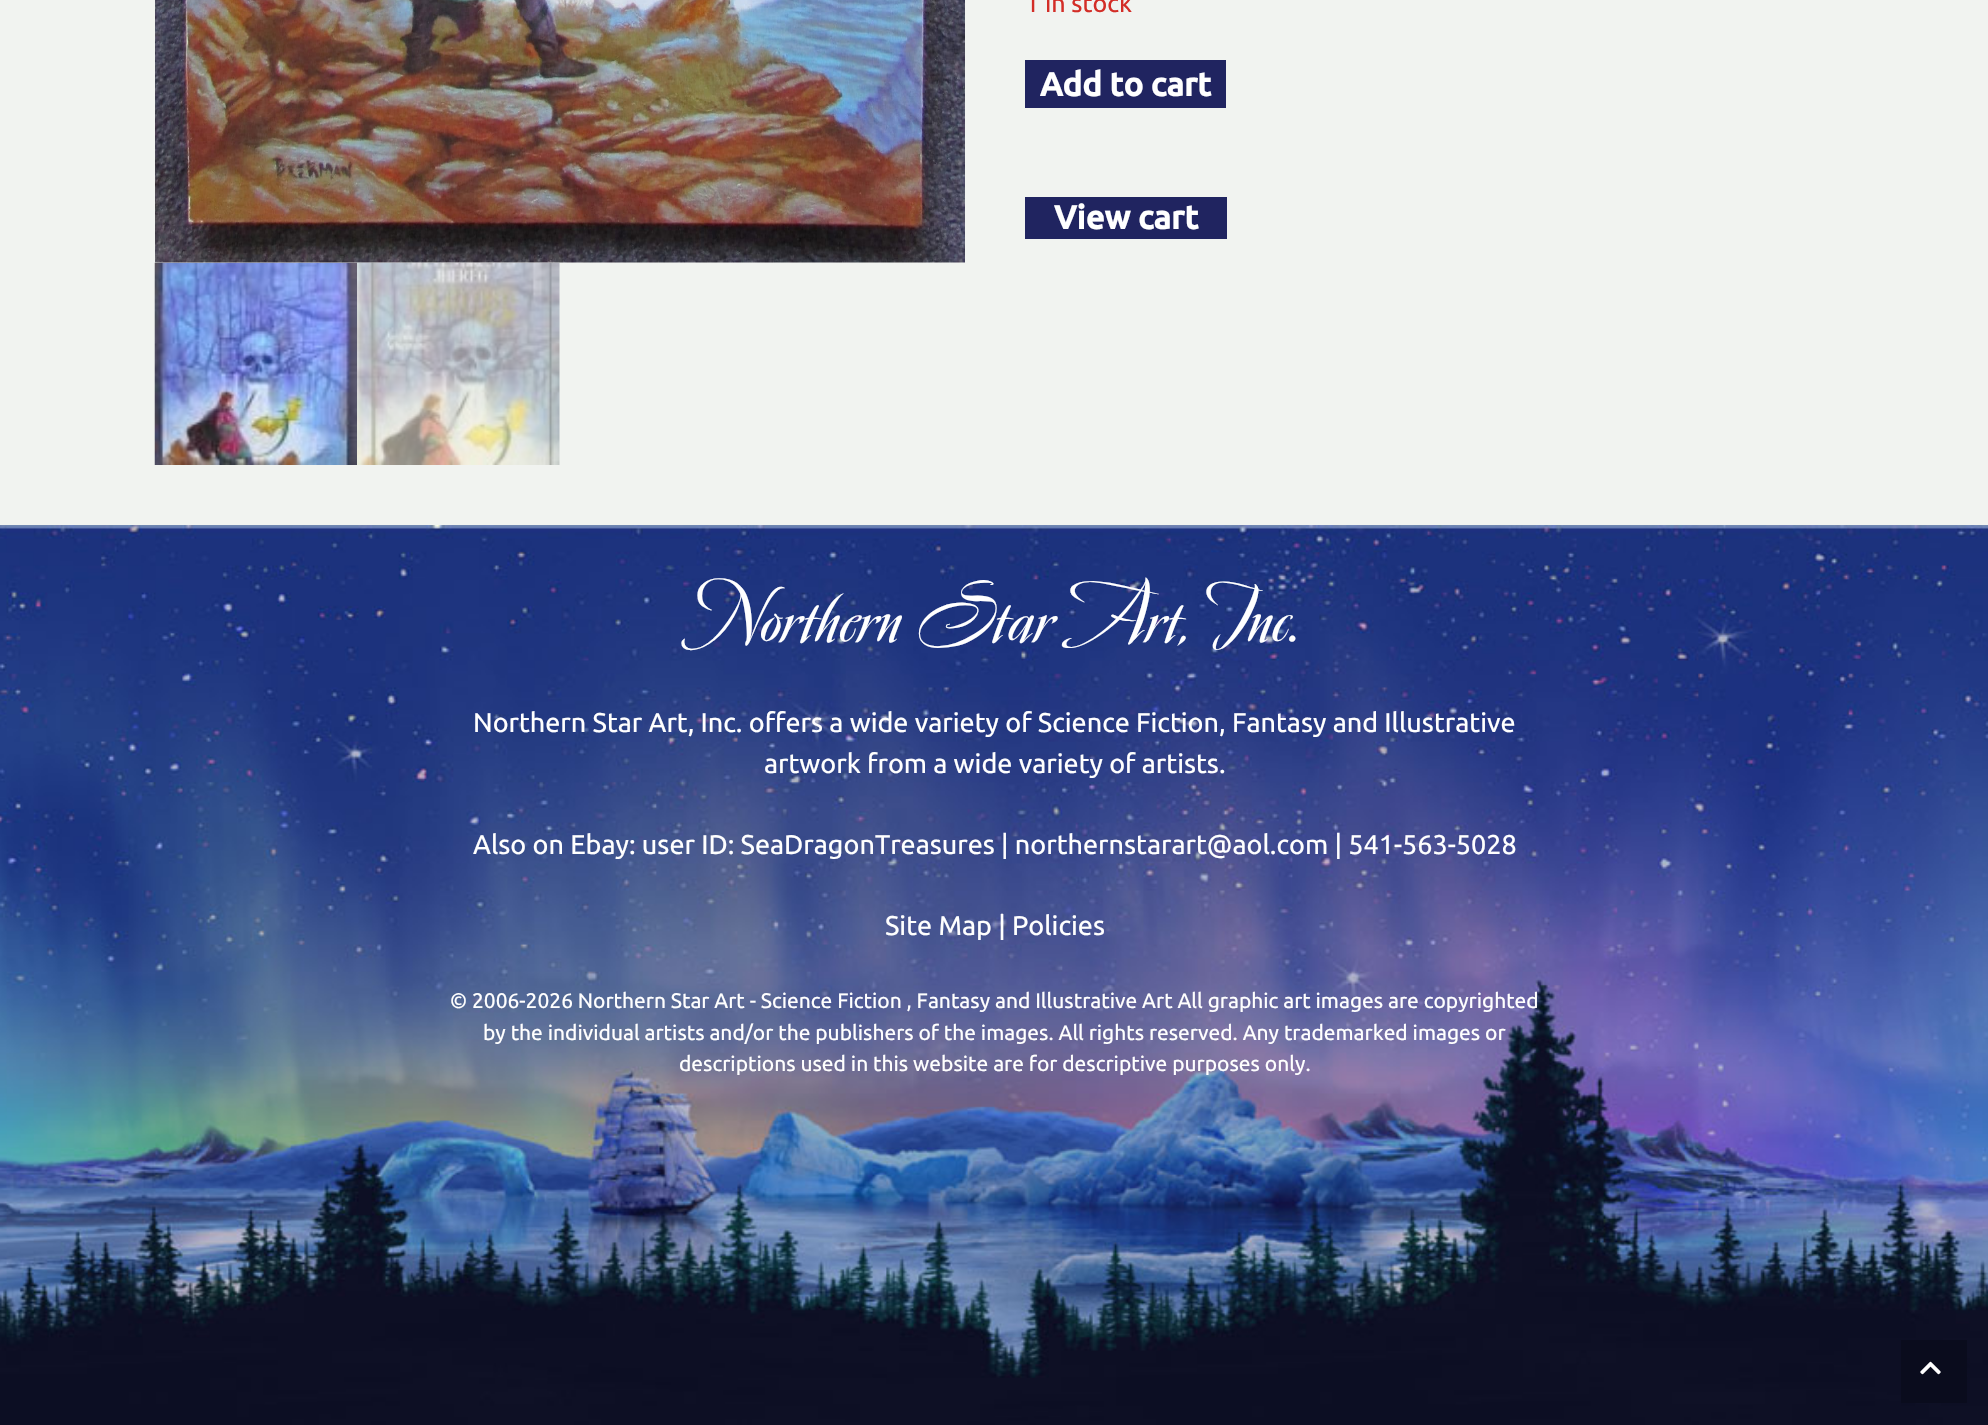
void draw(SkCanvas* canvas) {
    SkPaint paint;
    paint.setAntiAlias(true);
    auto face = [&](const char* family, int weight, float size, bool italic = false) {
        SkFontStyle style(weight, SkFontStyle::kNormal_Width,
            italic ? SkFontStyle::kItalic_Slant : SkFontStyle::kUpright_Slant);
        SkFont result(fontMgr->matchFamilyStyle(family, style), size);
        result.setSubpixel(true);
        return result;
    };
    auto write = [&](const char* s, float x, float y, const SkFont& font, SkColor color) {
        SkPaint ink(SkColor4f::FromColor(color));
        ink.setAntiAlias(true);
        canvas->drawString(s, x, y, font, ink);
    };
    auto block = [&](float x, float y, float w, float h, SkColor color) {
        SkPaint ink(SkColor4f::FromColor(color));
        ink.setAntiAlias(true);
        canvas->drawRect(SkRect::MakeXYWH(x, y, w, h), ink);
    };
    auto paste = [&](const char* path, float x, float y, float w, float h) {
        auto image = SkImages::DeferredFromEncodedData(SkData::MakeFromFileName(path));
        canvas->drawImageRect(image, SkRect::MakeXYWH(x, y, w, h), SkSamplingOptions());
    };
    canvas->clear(SkColorSetRGB(241, 243, 240));
    paste("pic2.png", 154, 262, 203, 203);
    paste("pic1.png", 155, 0, 810, 263);
    paste("pic3.png", 357, 262, 203, 203);
    auto kFont1 = face("Ubuntu", 400, 25);
    write("1 in stock", 1025, 12, kFont1, SkColorSetRGB(211, 45, 39));
    block(1025, 60, 201, 48, SkColorSetRGB(32, 36, 96));
    auto kFont2 = face("Ubuntu", 700, 33);
    write("Add to cart", 1040, 96, kFont2, SK_ColorWHITE);
    block(1025, 197, 202, 42, SkColorSetRGB(32, 36, 96));
    write("View cart", 1054, 229, kFont2, SK_ColorWHITE);
    paste("pic4.png", 0, 525, 1988, 900);
    auto kFont3 = face("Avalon", 700, 90);
    write("Northern Star Art, Inc.", 688, 641, kFont3, SK_ColorWHITE);
    auto kFont4 = face("Ubuntu", 400, 27);
    write("Northern Star Art, Inc. offers a wide variety of Science Fiction, Fantasy and Illustrative", 473, 732, kFont4, SK_ColorWHITE);
    write("artwork from a wide variety of artists.", 764, 773, kFont4, SK_ColorWHITE);
    write("Also on Ebay: user ID: SeaDragonTreasures | northernstarart@aol.com | 541-563-5028", 473, 854, kFont4, SK_ColorWHITE);
    write("Site Map | Policies", 885, 935, kFont4, SK_ColorWHITE);
    auto kFont5 = face("Ubuntu", 400, 21);
    write("© 2006-2026 Northern Star Art - Science Fiction , Fantasy and Illustrative Art All graphic art images are copyrighted", 450, 1008, kFont5, SK_ColorWHITE);
    write("by the individual artists and/or the publishers of the images. All rights reserved. Any trademarked images or", 483, 1040, kFont5, SK_ColorWHITE);
    write("descriptions used in this website are for descriptive purposes only.", 679, 1071, kFont5, SK_ColorWHITE);
    block(1901, 1340, 66, 63, SkColorSetRGB(10, 12, 29));
    paste("pic5.png", 1920, 1361, 21, 14);
}
